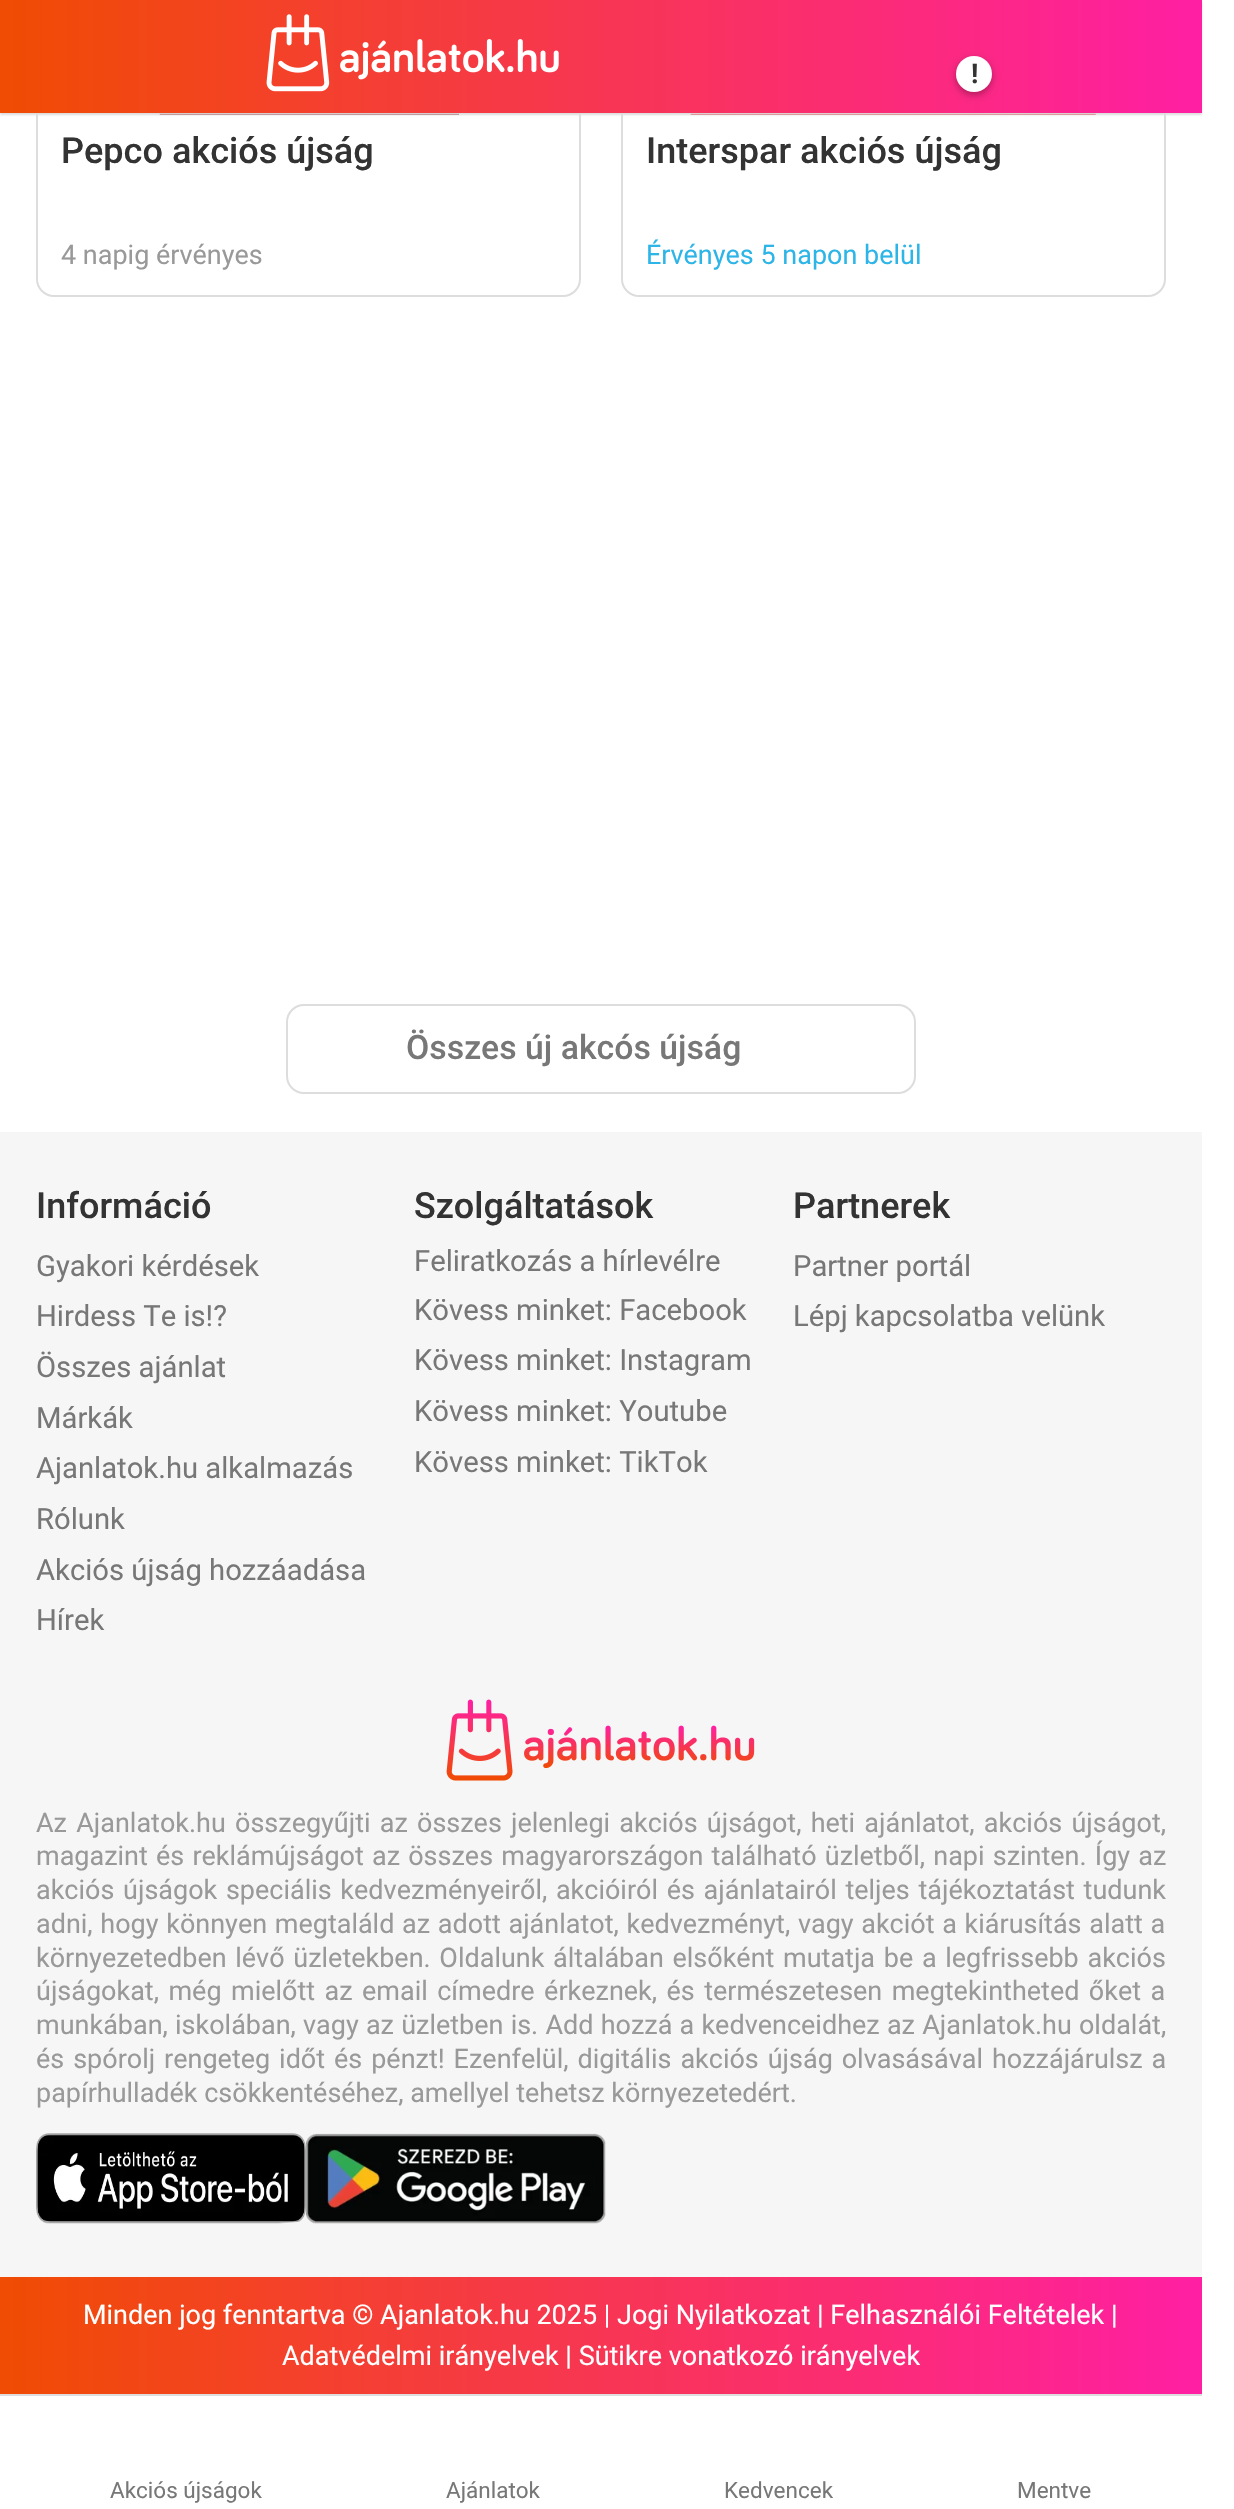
void draw(SkCanvas* canvas) {
    SkPaint paint;
    paint.setAntiAlias(true);
    auto face = [&](const char* family, int weight, float size, bool italic = false) {
        SkFontStyle style(weight, SkFontStyle::kNormal_Width,
            italic ? SkFontStyle::kItalic_Slant : SkFontStyle::kUpright_Slant);
        SkFont result(fontMgr->matchFamilyStyle(family, style), size);
        result.setSubpixel(true);
        return result;
    };
    auto write = [&](const char* s, float x, float y, const SkFont& font, SkColor color) {
        SkPaint ink(SkColor4f::FromColor(color));
        ink.setAntiAlias(true);
        canvas->drawString(s, x, y, font, ink);
    };
    auto writeSpaced = [&](const char* s, float x, float y, const SkFont& font, const SkPaint& ink, float letter, float word) {
        std::vector<SkGlyphID> glyphs(font.countText(s, strlen(s), SkTextEncoding::kUTF8));
        std::vector<float> xs(glyphs.size());
        font.textToGlyphs(s, strlen(s), SkTextEncoding::kUTF8, glyphs);
        font.getXPos(glyphs, xs, x);
        float extra = 0;
        for (size_t i = 0; i < glyphs.size(); i++) {
            xs[i] += extra;
            extra += letter + word * (glyphs[i] == font.unicharToGlyph(' '));
        }
        canvas->drawTextBlob(SkTextBlob::MakeFromPosHGlyphs(glyphs, xs, y, font), 0, 0, ink);
    };
    auto block = [&](float x, float y, float w, float h, SkColor color) {
        SkPaint ink(SkColor4f::FromColor(color));
        ink.setAntiAlias(true);
        canvas->drawRect(SkRect::MakeXYWH(x, y, w, h), ink);
    };
    auto paste = [&](const char* path, float x, float y, float w, float h) {
        auto image = SkImages::DeferredFromEncodedData(SkData::MakeFromFileName(path));
        canvas->drawImageRect(image, SkRect::MakeXYWH(x, y, w, h), SkSamplingOptions());
    };
    canvas->clear(SK_ColorWHITE);
    paint.setStyle(SkPaint::kStroke_Style);
    paint.setStrokeWidth(2);
    paint.setColor(SkColorSetRGB(221, 221, 221));
    canvas->drawRoundRect(SkRect::MakeXYWH(37, -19, 543, 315), 17, 17, paint);
    block(38, 113, 540, 2, SkColorSetRGB(246, 246, 246));
    paste("pic2.png", 159, 113, 300, 2);
    paint.setStyle(SkPaint::kFill_Style);
    paint.setColor(SK_ColorWHITE);
    canvas->drawPath(SkPathBuilder().moveTo(38, 115).lineTo(578, 115).lineTo(578, 277).cubicTo(578, 287, 570, 295, 560, 295).lineTo(56, 295).cubicTo(46, 295, 38, 287, 38, 277).close().detach(), paint);
    paint.setStyle(SkPaint::kStroke_Style);
    paint.setColor(SkColorSetRGB(221, 221, 221));
    canvas->drawRoundRect(SkRect::MakeXYWH(622, -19, 543, 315), 17, 17, paint);
    block(623, 113, 540, 2, SkColorSetRGB(246, 246, 246));
    paste("pic3.png", 690, 113, 406, 2);
    paint.setStyle(SkPaint::kFill_Style);
    paint.setColor(SK_ColorWHITE);
    canvas->drawPath(SkPathBuilder().moveTo(623, 115).lineTo(1163, 115).lineTo(1163, 277).cubicTo(1163, 287, 1155, 295, 1145, 295).lineTo(641, 295).cubicTo(631, 295, 623, 287, 623, 277).close().detach(), paint);
    paint.setColor(SkColorSetRGB(221, 221, 221));
    paint.setMaskFilter(SkMaskFilter::MakeBlur(kNormal_SkBlurStyle, 1));
    canvas->drawRect(SkRect::MakeXYWH(0, 2, 1202, 113), paint);
    paint.setMaskFilter(nullptr);
    {
        const SkColor colors[] = {SkColorSetRGB(255, 31, 163), SkColorSetRGB(240, 76, 3)};
        const float stops[] = {0, 1};
        const SkPoint ends[] = {{1202, 56}, {0, 56}};
        paint.setShader(SkGradientShader::MakeLinear(ends, colors, stops, 2, SkTileMode::kClamp));
        paint.setAlpha(255);
    }
    canvas->drawRect(SkRect::MakeXYWH(0, 0, 1202, 113), paint);
    paste("pic1.png", 266, 14, 293, 78);
    paint.setShader(nullptr);
    paint.setColor(SkColorSetARGB(77, 0, 0, 0));
    paint.setMaskFilter(SkMaskFilter::MakeBlur(kNormal_SkBlurStyle, 3.5f));
    canvas->drawRoundRect(SkRect::MakeXYWH(956, 59, 36, 36), 18, 18, paint);
    paint.setMaskFilter(nullptr);
    paint.setColor(SK_ColorWHITE);
    canvas->drawCircle(974, 74, 18, paint);
    auto kFont1 = face("Roboto", 700, 27);
    write("!", 971, 83, kFont1, SkColorSetRGB(51, 51, 51));
    auto kFont2 = face("Roboto", 500, 36);
    write("Pepco akciós újság", 61, 163, kFont2, SkColorSetRGB(51, 51, 51));
    auto kFont3 = face("Roboto", 400, 27);
    write("4 napig érvényes", 61, 264, kFont3, SkColorSetRGB(153, 153, 153));
    write("Interspar akciós újság", 646, 163, kFont2, SkColorSetRGB(51, 51, 51));
    write("Érvényes 5 napon belül", 646, 264, kFont3, SkColorSetRGB(44, 181, 230));
    paint.setStyle(SkPaint::kStroke_Style);
    paint.setColor(SkColorSetRGB(221, 221, 221));
    canvas->drawRoundRect(SkRect::MakeXYWH(287, 1005, 628, 88), 17, 17, paint);
    auto kFont4 = face("Roboto", 500, 33.75f);
    write("Összes új akcós újság", 406, 1059, kFont4, SkColorSetRGB(119, 119, 119));
    block(0, 1132, 1202, 1145, SkColorSetRGB(246, 246, 246));
    write("Információ", 36, 1218, kFont2, SkColorSetRGB(51, 51, 51));
    auto kFont5 = face("Roboto", 400, 29.25f);
    write("Gyakori kérdések", 36, 1276, kFont5, SkColorSetRGB(119, 119, 119));
    write("Hirdess Te is!?", 36, 1326, kFont5, SkColorSetRGB(119, 119, 119));
    write("Összes ajánlat", 36, 1377, kFont5, SkColorSetRGB(119, 119, 119));
    write("Márkák", 36, 1428, kFont5, SkColorSetRGB(119, 119, 119));
    write("Ajanlatok.hu alkalmazás", 36, 1478, kFont5, SkColorSetRGB(119, 119, 119));
    write("Rólunk", 36, 1529, kFont5, SkColorSetRGB(119, 119, 119));
    write("Akciós újság hozzáadása", 36, 1580, kFont5, SkColorSetRGB(119, 119, 119));
    write("Hírek", 36, 1630, kFont5, SkColorSetRGB(119, 119, 119));
    write("Szolgáltatások", 414, 1218, kFont2, SkColorSetRGB(51, 51, 51));
    write("Feliratkozás a hírlevélre", 414, 1271, kFont5, SkColorSetRGB(119, 119, 119));
    write("Kövess minket: Facebook", 414, 1320, kFont5, SkColorSetRGB(119, 119, 119));
    write("Kövess minket: Instagram", 414, 1370, kFont5, SkColorSetRGB(119, 119, 119));
    write("Kövess minket: Youtube", 414, 1421, kFont5, SkColorSetRGB(119, 119, 119));
    write("Kövess minket: TikTok", 414, 1472, kFont5, SkColorSetRGB(119, 119, 119));
    write("Partnerek", 793, 1218, kFont2, SkColorSetRGB(51, 51, 51));
    write("Partner portál", 793, 1276, kFont5, SkColorSetRGB(119, 119, 119));
    write("Lépj kapcsolatba velünk", 793, 1326, kFont5, SkColorSetRGB(119, 119, 119));
    paste("pic4.png", 446, 1699, 309, 82);
    paint.setStyle(SkPaint::kFill_Style);
    paint.setColor(SkColorSetRGB(153, 153, 153));
    writeSpaced("Az Ajanlatok.hu összegyűjti az összes jelenlegi akciós újságot, heti ajánlatot, akciós újságot,", 36, 1832, kFont3, paint, 0, 2.5f);
    writeSpaced("magazint és reklámújságot az összes magyarországon található üzletből, napi szinten. Így az", 36, 1865, kFont3, paint, 0, 1.5f);
    writeSpaced("akciós újságok speciális kedvezményeiről, akcióiról és ajánlatairól teljes tájékoztatást tudunk", 36, 1899, kFont3, paint, 0, 2);
    writeSpaced("adni, hogy könnyen megtaláld az adott ajánlatot, kedvezményt, vagy akciót a kiárusítás alatt a", 36, 1933, kFont3, paint, 0, 1);
    writeSpaced("környezetedben lévő üzletekben. Oldalunk általában elsőként mutatja be a legfrissebb akciós", 36, 1967, kFont3, paint, 0, 2);
    writeSpaced("újságokat, még mielőtt az email címedre érkeznek, és természetesen megtekintheted őket a", 36, 2000, kFont3, paint, 0, 2.75f);
    writeSpaced("munkában, iskolában, vagy az üzletben is. Add hozzá a kedvenceidhez az Ajanlatok.hu oldalát,", 36, 2034, kFont3, paint, 0, 0.5f);
    writeSpaced("és spórolj rengeteg időt és pénzt! Ezenfelül, digitális akciós újság olvasásával hozzájárulsz a", 36, 2068, kFont3, paint, 0, 2.25f);
    write("papírhulladék csökkentéséhez, amellyel tehetsz környezetedért.", 36, 2102, kFont3, SkColorSetRGB(153, 153, 153));
    paste("pic5.png", 36, 2133, 270, 91);
    paste("pic6.png", 306, 2133, 300, 91);
    {
        const SkColor colors[] = {SkColorSetRGB(255, 31, 163), SkColorSetRGB(240, 76, 3)};
        const float stops[] = {0, 1};
        const SkPoint ends[] = {{1202, 2336}, {0, 2336}};
        paint.setShader(SkGradientShader::MakeLinear(ends, colors, stops, 2, SkTileMode::kClamp));
        paint.setAlpha(255);
    }
    canvas->drawRect(SkRect::MakeXYWH(0, 2277, 1202, 117), paint);
    write("Minden jog fenntartva © Ajanlatok.hu 2025 | Jogi Nyilatkozat | Felhasználói Feltételek |", 83, 2324, kFont3, SK_ColorWHITE);
    write("Adatvédelmi irányelvek | Sütikre vonatkozó irányelvek", 282, 2365, kFont3, SK_ColorWHITE);
    block(0, 2394, 1202, 2, SkColorSetRGB(221, 221, 221));
    auto kFont6 = face("Roboto", 400, 22.5f);
    write("Akciós újságok", 110, 2498, kFont6, SkColorSetRGB(119, 119, 119));
    write("Ajánlatok", 446, 2498, kFont6, SkColorSetRGB(119, 119, 119));
    write("Kedvencek", 724, 2498, kFont6, SkColorSetRGB(119, 119, 119));
    write("Mentve", 1017, 2498, kFont6, SkColorSetRGB(119, 119, 119));
}
